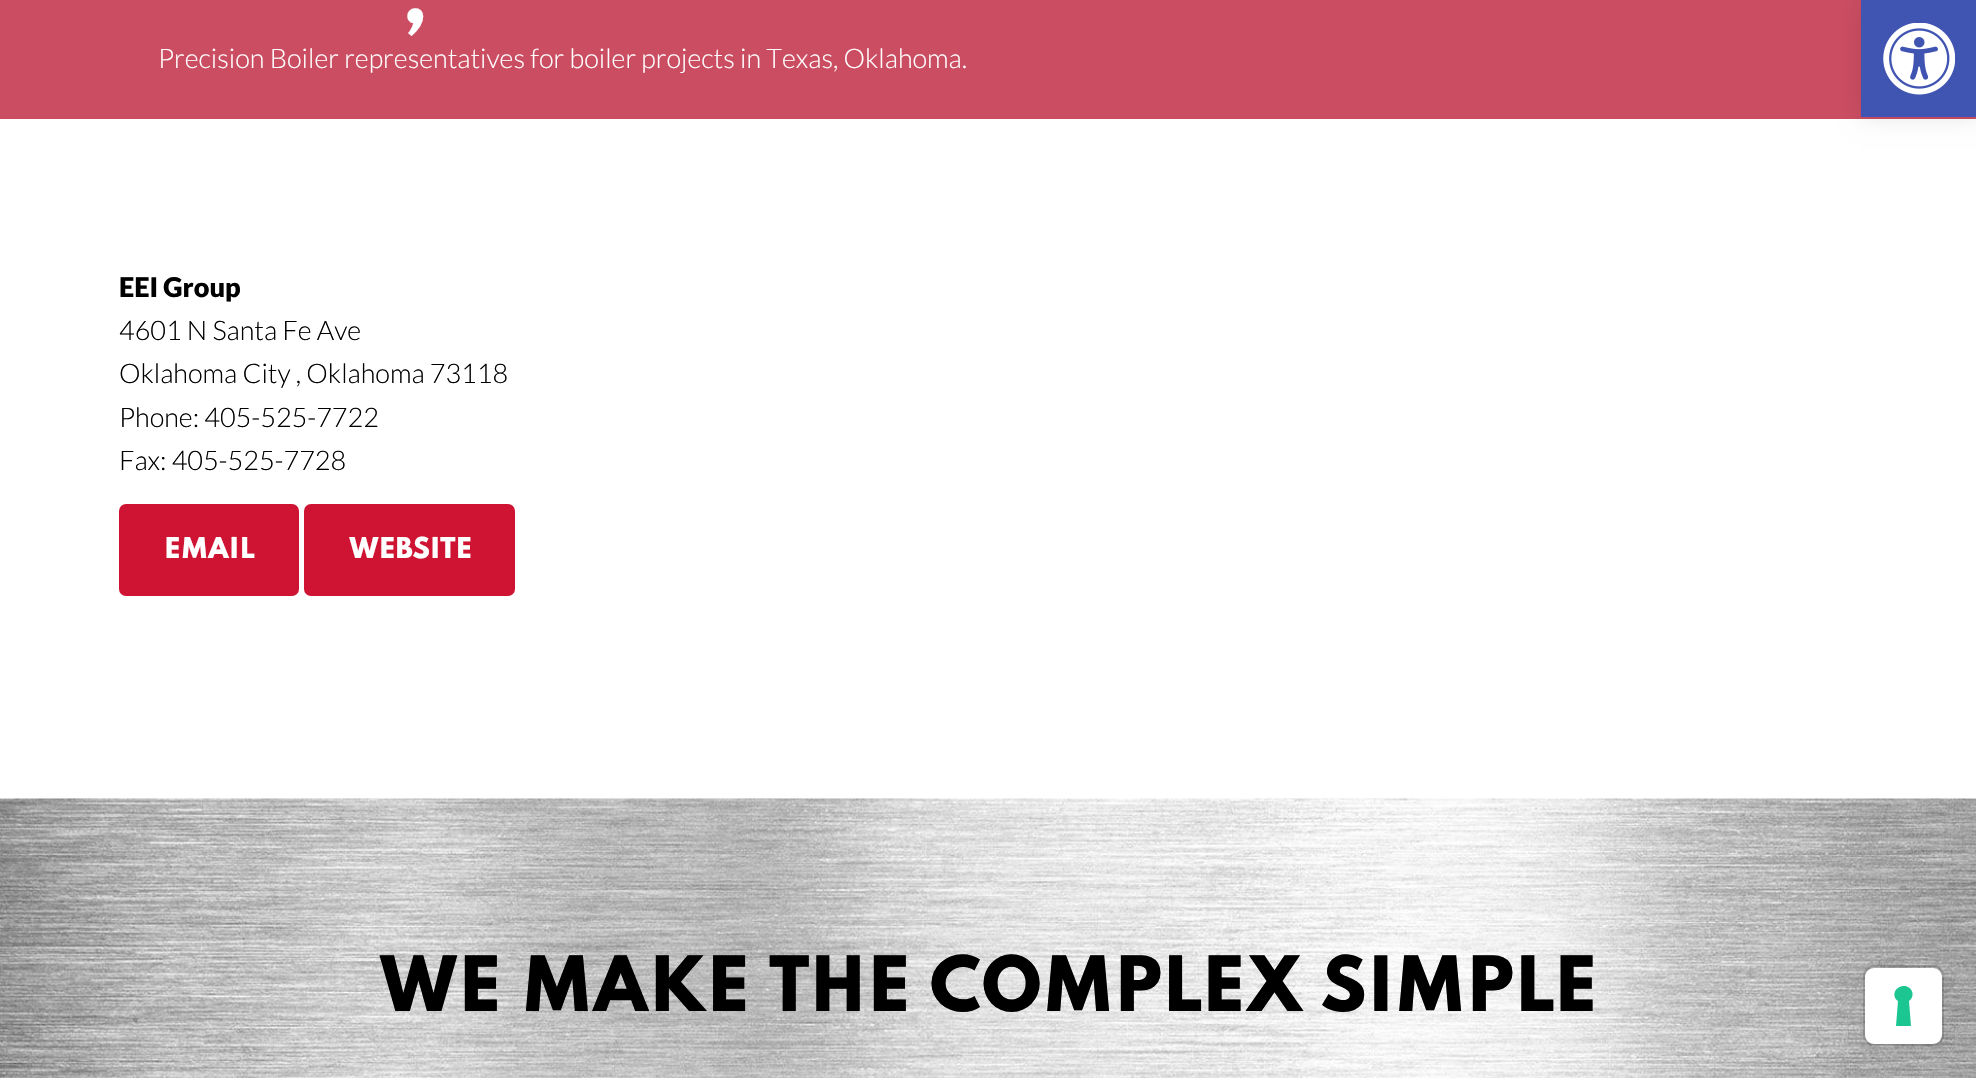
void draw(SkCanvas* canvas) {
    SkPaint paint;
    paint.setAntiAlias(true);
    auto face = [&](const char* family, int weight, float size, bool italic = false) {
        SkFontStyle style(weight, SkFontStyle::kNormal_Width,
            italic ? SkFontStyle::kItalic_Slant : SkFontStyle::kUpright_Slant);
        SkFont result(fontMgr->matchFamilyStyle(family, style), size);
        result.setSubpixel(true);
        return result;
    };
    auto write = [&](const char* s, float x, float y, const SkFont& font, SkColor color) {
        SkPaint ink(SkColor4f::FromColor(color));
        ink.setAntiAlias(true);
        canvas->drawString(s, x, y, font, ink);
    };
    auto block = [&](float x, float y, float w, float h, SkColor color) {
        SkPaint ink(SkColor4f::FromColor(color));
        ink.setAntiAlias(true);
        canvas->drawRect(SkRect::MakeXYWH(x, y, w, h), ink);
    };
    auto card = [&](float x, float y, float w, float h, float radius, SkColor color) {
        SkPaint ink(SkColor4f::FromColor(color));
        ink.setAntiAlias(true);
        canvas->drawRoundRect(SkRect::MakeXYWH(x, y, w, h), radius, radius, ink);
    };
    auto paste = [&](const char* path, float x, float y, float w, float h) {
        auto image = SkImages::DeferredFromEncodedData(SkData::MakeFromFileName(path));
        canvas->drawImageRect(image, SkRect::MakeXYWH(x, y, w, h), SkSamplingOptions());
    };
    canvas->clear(SK_ColorWHITE);
    block(0, 0, 1976, 119, SkColorSetRGB(203, 77, 98));
    auto kFont1 = face("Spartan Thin", 100, 67.5f);
    write(",", 402, 23, kFont1, SK_ColorWHITE);
    auto kFont2 = face("Lato", 300, 27);
    write("Precision Boiler representatives for boiler projects in Texas, Oklahoma.", 158, 68, kFont2, SK_ColorWHITE);
    auto kFont3 = face("Lato", 900, 27);
    write("EEI Group", 119, 297, kFont3, SK_ColorBLACK);
    write("4601 N Santa Fe Ave", 119, 340, kFont2, SK_ColorBLACK);
    write("Oklahoma City , Oklahoma 73118", 119, 383, kFont2, SK_ColorBLACK);
    write("Phone: 405-525-7722", 119, 427, kFont2, SK_ColorBLACK);
    write("Fax: 405-525-7728", 119, 470, kFont2, SK_ColorBLACK);
    card(119, 504, 180, 92, 7, SkColorSetRGB(206, 20, 50));
    auto kFont4 = face("Spartan Thin", 100, 25.5f);
    write("EMAIL", 164, 558, kFont4, SK_ColorWHITE);
    card(304, 504, 211, 92, 7, SkColorSetRGB(206, 20, 50));
    write("WEBSITE", 349, 558, kFont4, SK_ColorWHITE);
    paste("pic1.png", 0, 798, 1976, 280);
    write("WE MAKE THE COMPLEX SIMPLE", 379, 1011, kFont1, SK_ColorBLACK);
    paint.setColor(SkColorSetARGB(26, 0, 0, 0));
    paint.setMaskFilter(SkMaskFilter::MakeBlur(kNormal_SkBlurStyle, 11));
    canvas->drawRect(SkRect::MakeXYWH(1861, 0, 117, 117), paint);
    paint.setMaskFilter(nullptr);
    block(1861, 0, 115, 117, SkColorSetRGB(64, 84, 178));
    paste("pic2.png", 1883, 23, 72, 72);
    paint.setStyle(SkPaint::kStroke_Style);
    paint.setStrokeWidth(2);
    paint.setColor(SkColorSetARGB(38, 0, 0, 0));
    canvas->drawRoundRect(SkRect::MakeXYWH(1864, 966, 79, 79), 10, 10, paint);
    card(1865, 968, 77, 76, 9, SK_ColorWHITE);
    paint.setStyle(SkPaint::kFill_Style);
    paint.setColor(SkColorSetRGB(28, 198, 145));
    canvas->drawPath(SkPathBuilder(SkPathFillType::kEvenOdd).moveTo(1904, 986).cubicTo(1912, 986, 1916, 996, 1909, 1001).lineTo(1911, 1026).lineTo(1896, 1026).lineTo(1898, 1001).cubicTo(1891, 996, 1895, 986, 1904, 986).close().detach(), paint);
}
